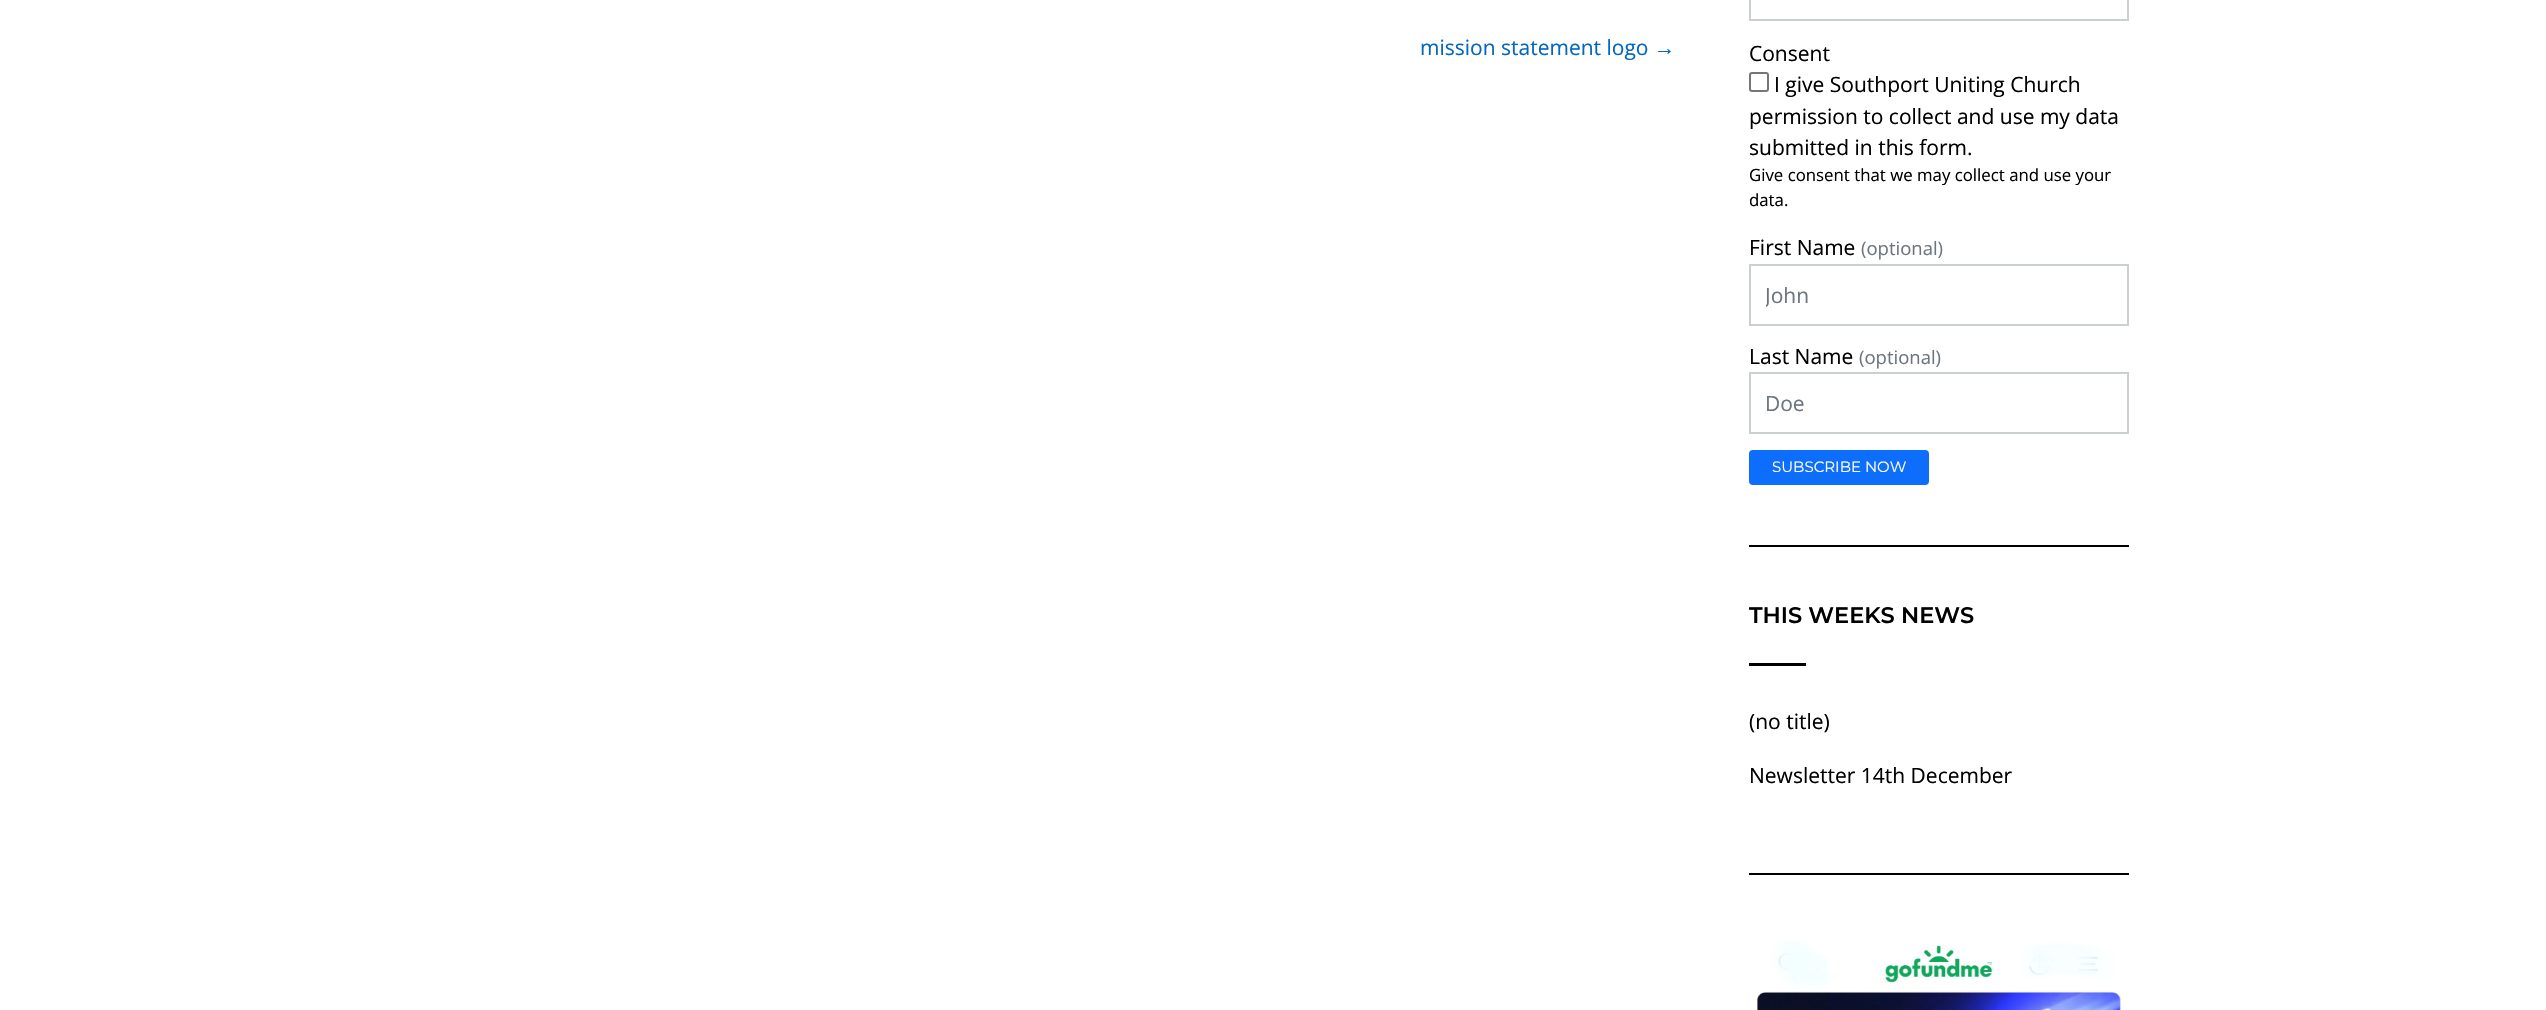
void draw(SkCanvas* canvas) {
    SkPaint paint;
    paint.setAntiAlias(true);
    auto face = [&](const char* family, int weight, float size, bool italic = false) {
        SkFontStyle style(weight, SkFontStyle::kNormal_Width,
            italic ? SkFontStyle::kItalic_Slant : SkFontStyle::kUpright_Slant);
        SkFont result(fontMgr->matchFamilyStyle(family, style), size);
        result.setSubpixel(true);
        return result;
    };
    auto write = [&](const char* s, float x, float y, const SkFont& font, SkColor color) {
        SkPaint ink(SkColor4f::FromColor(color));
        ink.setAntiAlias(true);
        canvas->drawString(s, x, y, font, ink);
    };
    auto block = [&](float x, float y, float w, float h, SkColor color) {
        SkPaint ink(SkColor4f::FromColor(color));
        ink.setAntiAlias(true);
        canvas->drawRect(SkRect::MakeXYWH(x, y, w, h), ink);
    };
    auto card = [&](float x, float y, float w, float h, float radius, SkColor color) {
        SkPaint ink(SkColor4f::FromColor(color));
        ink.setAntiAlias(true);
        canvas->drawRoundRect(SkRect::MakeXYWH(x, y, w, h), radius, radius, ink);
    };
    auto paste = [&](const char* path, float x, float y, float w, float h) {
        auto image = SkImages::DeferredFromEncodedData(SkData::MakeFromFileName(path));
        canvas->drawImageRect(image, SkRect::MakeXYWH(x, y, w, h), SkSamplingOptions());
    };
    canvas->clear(SK_ColorWHITE);
    auto kFont1 = face("Open Sans", 400, 21);
    write("mission statement logo", 1420, 55, kFont1, SkColorSetRGB(3, 103, 191));
    auto kFont2 = face("Liberation Sans", 400, 21);
    write("→", 1654, 55, kFont2, SkColorSetRGB(3, 103, 191));
    block(1749, 545, 380, 2, SK_ColorBLACK);
    paint.setStyle(SkPaint::kStroke_Style);
    paint.setStrokeWidth(2);
    paint.setColor(SkColorSetRGB(202, 207, 208));
    canvas->drawRect(SkRect::MakeXYWH(1750, -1, 378, 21), paint);
    write("Consent", 1749, 61, kFont1, SK_ColorBLACK);
    paint.setColor(SkColorSetRGB(118, 118, 118));
    canvas->drawRoundRect(SkRect::MakeXYWH(1750, 73, 18, 18), 2, 2, paint);
    write("I give Southport Uniting Church", 1774, 92, kFont1, SK_ColorBLACK);
    write("permission to collect and use my data", 1749, 124, kFont1, SK_ColorBLACK);
    write("submitted in this form.", 1749, 155, kFont1, SK_ColorBLACK);
    auto kFont3 = face("Open Sans", 400, 16.8f);
    write("Give consent that we may collect and use your", 1749, 181, kFont3, SK_ColorBLACK);
    write("data.", 1749, 206, kFont3, SK_ColorBLACK);
    write("First Name", 1749, 255, kFont1, SK_ColorBLACK);
    auto kFont4 = face("Open Sans", 400, 18.5f);
    write("(optional)", 1861, 255, kFont4, SkColorSetRGB(108, 117, 125));
    paint.setColor(SkColorSetRGB(202, 207, 208));
    canvas->drawRect(SkRect::MakeXYWH(1750, 265, 378, 60), paint);
    canvas->save();
    canvas->clipRect(SkRect::MakeXYWH(1766, 281, 357, 28));
    write("John", 1765, 303, kFont1, SkColorSetRGB(108, 117, 125));
    canvas->restore();
    write("Last Name", 1749, 364, kFont1, SK_ColorBLACK);
    write("(optional)", 1859, 364, kFont4, SkColorSetRGB(108, 117, 125));
    canvas->drawRect(SkRect::MakeXYWH(1750, 373, 378, 60), paint);
    write("Doe", 1765, 411, kFont1, SkColorSetRGB(108, 117, 125));
    card(1749, 450, 180, 35, 4, SkColorSetRGB(13, 110, 253));
    auto kFont5 = face("Montserrat", 400, 15);
    write("SUBSCRIBE NOW", 1772, 472, kFont5, SK_ColorWHITE);
    block(1749, 873, 380, 2, SK_ColorBLACK);
    auto kFont6 = face("Montserrat", 600, 22.5f);
    write("THIS WEEKS NEWS", 1749, 623, kFont6, SK_ColorBLACK);
    block(1749, 663, 57, 3, SK_ColorBLACK);
    write("(no title)", 1749, 729, kFont1, SK_ColorBLACK);
    write("Newsletter 14th December", 1749, 783, kFont1, SK_ColorBLACK);
    paste("pic1.png", 1757, 941, 364, 69);
}
